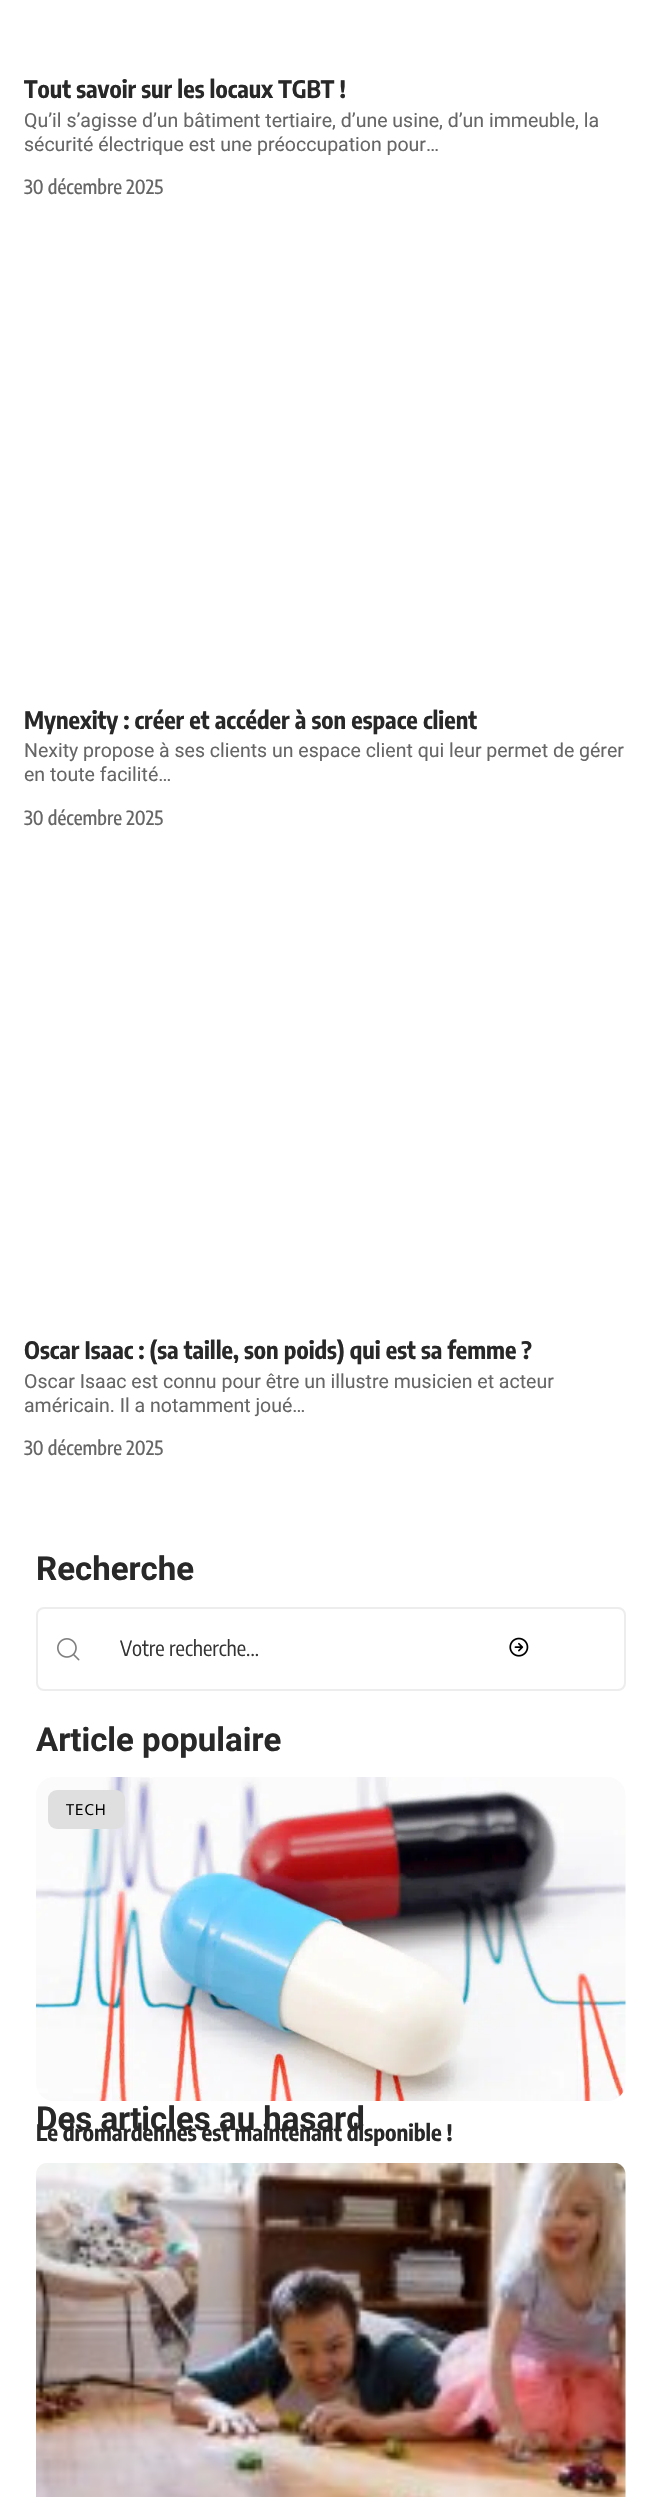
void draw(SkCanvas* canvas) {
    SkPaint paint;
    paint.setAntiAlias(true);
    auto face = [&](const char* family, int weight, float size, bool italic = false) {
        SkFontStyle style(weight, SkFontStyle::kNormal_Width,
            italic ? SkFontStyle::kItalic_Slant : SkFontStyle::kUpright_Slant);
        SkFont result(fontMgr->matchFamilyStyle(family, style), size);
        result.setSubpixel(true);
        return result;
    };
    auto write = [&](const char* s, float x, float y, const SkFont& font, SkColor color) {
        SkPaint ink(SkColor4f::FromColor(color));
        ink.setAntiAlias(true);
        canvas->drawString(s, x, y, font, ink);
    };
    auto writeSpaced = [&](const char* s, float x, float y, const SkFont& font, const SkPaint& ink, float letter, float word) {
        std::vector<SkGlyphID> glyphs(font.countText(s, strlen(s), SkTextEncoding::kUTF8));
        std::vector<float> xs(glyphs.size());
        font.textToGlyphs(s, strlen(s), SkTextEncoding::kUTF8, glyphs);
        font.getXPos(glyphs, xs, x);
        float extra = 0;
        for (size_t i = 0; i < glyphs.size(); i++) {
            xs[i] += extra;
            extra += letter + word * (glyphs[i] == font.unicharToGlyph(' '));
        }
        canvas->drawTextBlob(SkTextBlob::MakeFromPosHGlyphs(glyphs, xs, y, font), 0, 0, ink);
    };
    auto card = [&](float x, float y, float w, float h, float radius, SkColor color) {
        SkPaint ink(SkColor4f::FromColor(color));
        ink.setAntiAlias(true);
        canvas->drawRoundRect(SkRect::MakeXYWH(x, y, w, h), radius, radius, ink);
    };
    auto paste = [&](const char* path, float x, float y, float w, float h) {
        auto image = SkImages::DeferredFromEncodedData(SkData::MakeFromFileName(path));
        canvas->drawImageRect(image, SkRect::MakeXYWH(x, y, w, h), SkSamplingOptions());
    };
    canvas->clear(SK_ColorWHITE);
    auto kFont1 = face("Encode Sans Condensed", 700, 24);
    write("Tout savoir sur les locaux TGBT !", 24, 98, kFont1, SkColorSetRGB(40, 40, 40));
    auto kFont2 = face("Roboto", 400, 19.5f);
    write("Qu’il s’agisse d’un bâtiment tertiaire, d’une usine, d’un immeuble, la", 24, 127, kFont2, SkColorSetRGB(102, 102, 102));
    write("sécurité électrique est une préoccupation pour…", 24, 151, kFont2, SkColorSetRGB(102, 102, 102));
    auto kFont3 = face("Encode Sans Condensed", 500, 19.5f);
    write("30 décembre 2025", 24, 194, kFont3, SkColorSetRGB(102, 102, 102));
    write("Mynexity : créer et accéder à son espace client", 24, 729, kFont1, SkColorSetRGB(40, 40, 40));
    write("Nexity propose à ses clients un espace client qui leur permet de gérer", 24, 757, kFont2, SkColorSetRGB(102, 102, 102));
    write("en toute facilité…", 24, 781, kFont2, SkColorSetRGB(102, 102, 102));
    write("30 décembre 2025", 24, 825, kFont3, SkColorSetRGB(102, 102, 102));
    write("Oscar Isaac : (sa taille, son poids) qui est sa femme ?", 24, 1359, kFont1, SkColorSetRGB(40, 40, 40));
    write("Oscar Isaac est connu pour être un illustre musicien et acteur", 24, 1388, kFont2, SkColorSetRGB(102, 102, 102));
    write("américain. Il a notamment joué…", 24, 1412, kFont2, SkColorSetRGB(102, 102, 102));
    write("30 décembre 2025", 24, 1455, kFont3, SkColorSetRGB(102, 102, 102));
    auto kFont4 = face("Roboto", 700, 33);
    write("Recherche", 36, 1580, kFont4, SkColorSetRGB(40, 40, 40));
    paint.setStyle(SkPaint::kStroke_Style);
    paint.setStrokeWidth(2);
    paint.setColor(SkColorSetRGB(237, 237, 237));
    canvas->drawRoundRect(SkRect::MakeXYWH(37, 1608, 588, 82), 7, 7, paint);
    paste("pic1.png", 57, 1638, 23, 23);
    auto kFont5 = face("Encode Sans Condensed", 400, 21);
    write("Votre recherche...", 120, 1656, kFont5, SkColorSetRGB(51, 51, 51));
    paste("pic2.png", 509, 1637, 20, 20);
    write("Article populaire", 36, 1751, kFont4, SkColorSetRGB(40, 40, 40));
    paste("pic3.png", 36, 1777, 590, 324);
    card(48, 1790, 77, 39, 9, SkColorSetRGB(223, 223, 223));
    auto kFont6 = face("Oxygen", 400, 15);
    paint.setStyle(SkPaint::kFill_Style);
    paint.setColor(SK_ColorBLACK);
    writeSpaced("TECH", 66, 1815, kFont6, paint, 1, 0);
    auto kFont7 = face("Encode Sans Condensed", 700, 22.5f);
    write("Le dromardennes est maintenant disponible !", 36, 2141, kFont7, SkColorSetRGB(40, 40, 40));
    write("Des articles au hasard", 36, 2130, kFont4, SkColorSetRGB(40, 40, 40));
    paste("pic4.png", 36, 2163, 590, 334);
}
